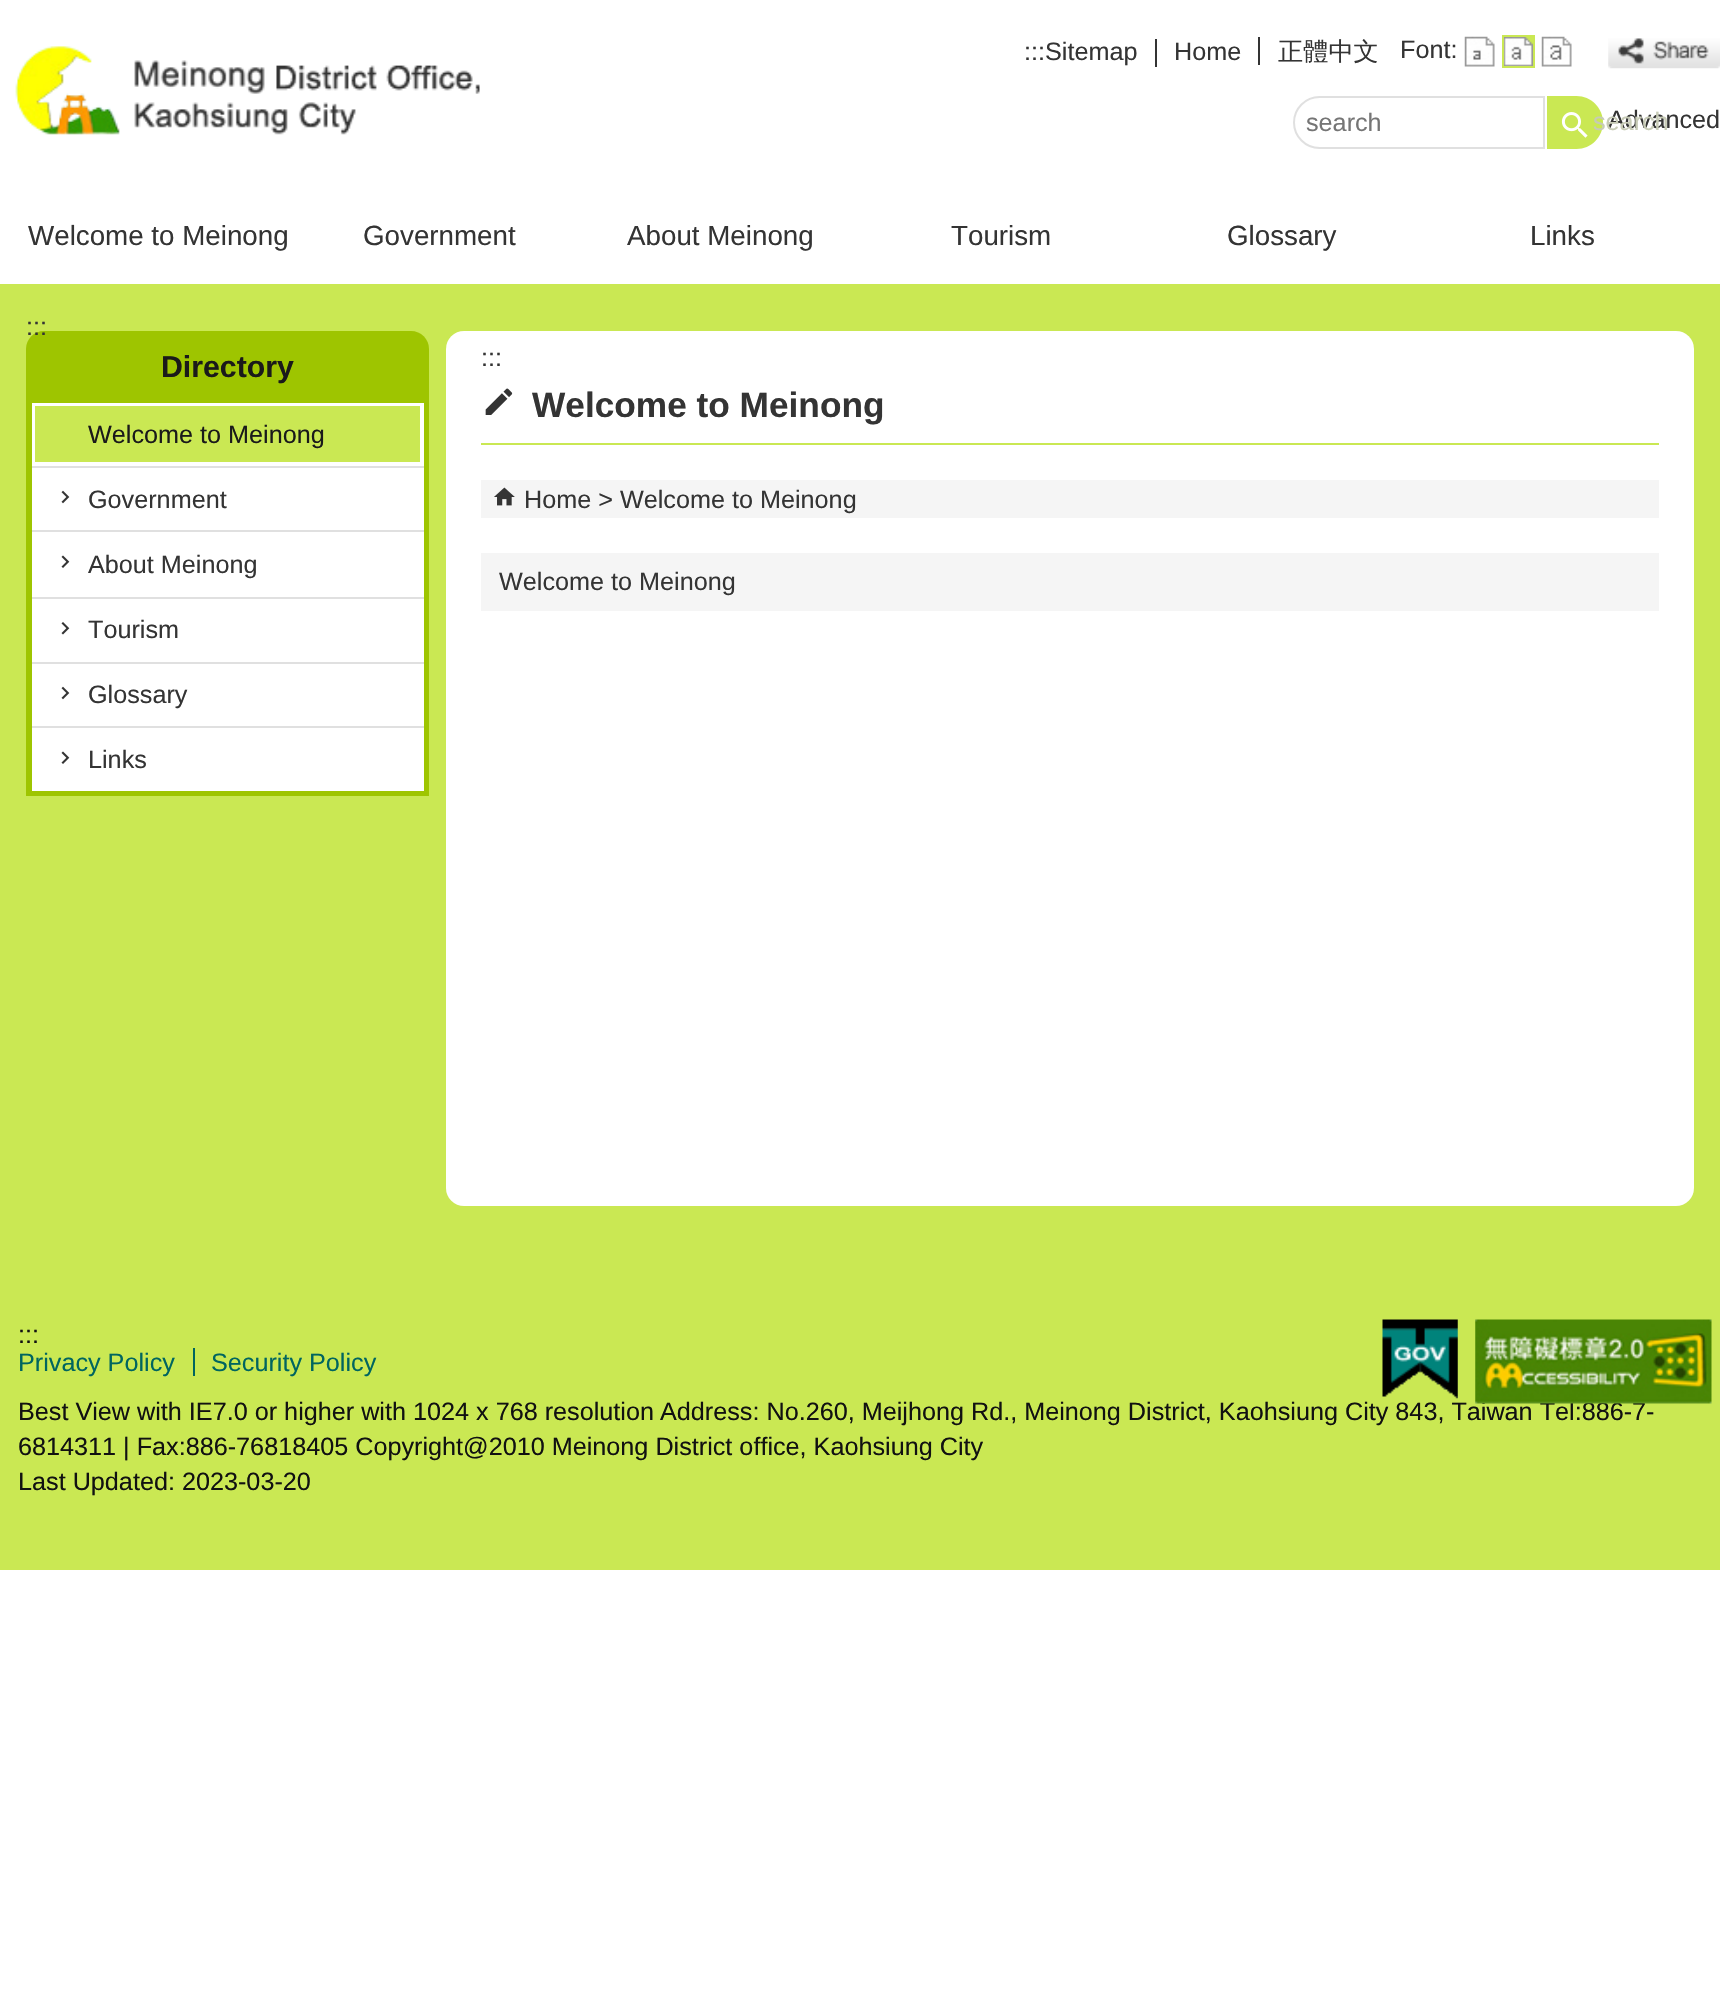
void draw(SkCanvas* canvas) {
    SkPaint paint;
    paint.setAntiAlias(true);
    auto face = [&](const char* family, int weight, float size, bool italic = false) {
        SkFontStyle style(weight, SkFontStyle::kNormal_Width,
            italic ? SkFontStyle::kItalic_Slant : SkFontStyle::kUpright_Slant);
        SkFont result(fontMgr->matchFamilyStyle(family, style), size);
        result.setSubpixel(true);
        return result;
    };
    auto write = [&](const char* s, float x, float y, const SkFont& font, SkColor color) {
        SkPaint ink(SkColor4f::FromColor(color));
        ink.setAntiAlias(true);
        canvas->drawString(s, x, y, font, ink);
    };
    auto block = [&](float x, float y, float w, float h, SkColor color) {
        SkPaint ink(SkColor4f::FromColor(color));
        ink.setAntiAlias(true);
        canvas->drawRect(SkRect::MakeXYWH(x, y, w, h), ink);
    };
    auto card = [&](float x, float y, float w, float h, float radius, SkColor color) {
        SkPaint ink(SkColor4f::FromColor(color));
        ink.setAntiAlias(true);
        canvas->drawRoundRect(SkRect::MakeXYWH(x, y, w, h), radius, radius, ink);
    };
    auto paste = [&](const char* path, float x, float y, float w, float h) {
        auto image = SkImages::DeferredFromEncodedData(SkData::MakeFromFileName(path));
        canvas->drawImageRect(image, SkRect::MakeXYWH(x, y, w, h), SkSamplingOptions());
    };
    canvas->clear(SK_ColorWHITE);
    paste("pic1.png", 15, 46, 465, 89);
    auto kFont1 = face("Liberation Sans", 400, 25.2f);
    write(":::Sitemap", 1024, 60, kFont1, SkColorSetRGB(52, 52, 52));
    write("Home", 1174, 60, kFont1, SkColorSetRGB(52, 52, 52));
    block(1155, 39, 2, 28, SkColorSetRGB(52, 52, 52));
    auto kFont2 = face("WenQuanYi Zen Hei", 500, 25.2f);
    write("正體中文", 1278, 60, kFont2, SkColorSetRGB(52, 52, 52));
    block(1258, 37, 2, 28, SkColorSetRGB(52, 52, 52));
    write("Font:", 1400, 58, kFont1, SkColorSetRGB(52, 52, 52));
    paste("pic2.png", 1464, 36, 31, 31);
    block(1525, 37, 8, 8, SkColorSetRGB(202, 232, 83));
    paste("pic3.png", 1504, 37, 29, 29);
    paint.setStyle(SkPaint::kStroke_Style);
    paint.setStrokeWidth(2);
    paint.setColor(SkColorSetRGB(202, 232, 83));
    canvas->drawRect(SkRect::MakeXYWH(1503, 36, 31, 31), paint);
    paste("pic4.png", 1541, 36, 31, 31);
    paste("pic5.png", 1608, 38, 112, 31);
    write("Advanced", 1608, 128, kFont1, SkColorSetRGB(52, 52, 52));
    paint.setColor(SkColorSetRGB(224, 224, 224));
    canvas->drawPath(SkPathBuilder().moveTo(1319.5f, 97).lineTo(1544, 97).lineTo(1544, 148).lineTo(1319.5f, 148).cubicTo(1305.5f, 148, 1294, 136.5f, 1294, 122.5f).cubicTo(1294, 108.5f, 1305.5f, 97, 1319.5f, 97).close().detach(), paint);
    write("search", 1306, 131, kFont1, SkColorSetRGB(117, 117, 117));
    paint.setStyle(SkPaint::kFill_Style);
    paint.setColor(SkColorSetRGB(202, 232, 83));
    canvas->drawPath(SkPathBuilder().moveTo(1547, 96).lineTo(1576.5f, 96).cubicTo(1591, 96, 1603, 108, 1603, 122.5f).cubicTo(1603, 137, 1591, 149, 1576.5f, 149).lineTo(1547, 149).close().detach(), paint);
    paste("pic6.png", 1561, 112, 27, 26);
    write("search", 1593, 130, kFont1, SkColorSetRGB(199, 203, 182));
    auto kFont3 = face("Liberation Sans", 400, 27.75f);
    write("Welcome to Meinong", 28, 245, kFont3, SkColorSetRGB(52, 52, 52));
    write("Government", 363, 245, kFont3, SkColorSetRGB(52, 52, 52));
    write("About Meinong", 627, 245, kFont3, SkColorSetRGB(52, 52, 52));
    write("Tourism", 951, 245, kFont3, SkColorSetRGB(52, 52, 52));
    write("Glossary", 1227, 245, kFont3, SkColorSetRGB(52, 52, 52));
    write("Links", 1530, 245, kFont3, SkColorSetRGB(52, 52, 52));
    block(0, 284, 1720, 1286, SkColorSetRGB(202, 232, 83));
    paint.setColor(SkColorSetRGB(158, 197, 0));
    canvas->drawPath(SkPathBuilder().moveTo(44, 331).lineTo(411, 331).cubicTo(421, 331, 429, 339, 429, 349).lineTo(429, 403).lineTo(26, 403).lineTo(26, 349).cubicTo(26, 339, 34, 331, 44, 331).close().detach(), paint);
    write(":::", 26, 335, kFont1, SkColorSetRGB(52, 52, 52));
    auto kFont4 = face("Liberation Sans", 700, 30.25f);
    write("Directory", 161, 377, kFont4, SkColorSetRGB(26, 26, 26));
    block(26, 403, 403, 393, SkColorSetRGB(158, 197, 0));
    block(32, 403, 392, 63, SK_ColorWHITE);
    block(35, 406, 385, 56, SkColorSetRGB(202, 232, 83));
    write("Welcome to Meinong", 88, 443, kFont1, SkColorSetRGB(26, 26, 26));
    block(32, 468, 392, 62, SK_ColorWHITE);
    block(32, 466, 392, 2, SkColorSetRGB(224, 224, 224));
    paste("pic7.png", 61, 490, 9, 14);
    write("Government", 88, 508, kFont1, SkColorSetRGB(52, 52, 52));
    block(32, 532, 392, 65, SK_ColorWHITE);
    block(32, 530, 392, 2, SkColorSetRGB(224, 224, 224));
    paste("pic8.png", 61, 555, 9, 13);
    write("About Meinong", 88, 573, kFont1, SkColorSetRGB(52, 52, 52));
    block(32, 599, 392, 63, SK_ColorWHITE);
    block(32, 597, 392, 2, SkColorSetRGB(224, 224, 224));
    paste("pic9.png", 61, 622, 9, 13);
    write("Tourism", 88, 638, kFont1, SkColorSetRGB(52, 52, 52));
    block(32, 664, 392, 62, SK_ColorWHITE);
    block(32, 662, 392, 2, SkColorSetRGB(224, 224, 224));
    paste("pic7.png", 61, 686, 9, 14);
    write("Glossary", 88, 703, kFont1, SkColorSetRGB(52, 52, 52));
    block(32, 728, 392, 63, SK_ColorWHITE);
    block(32, 726, 392, 2, SkColorSetRGB(224, 224, 224));
    paste("pic8.png", 61, 751, 9, 13);
    write("Links", 88, 768, kFont1, SkColorSetRGB(52, 52, 52));
    card(446, 331, 1248, 875, 18, SK_ColorWHITE);
    write(":::", 481, 366, kFont1, SkColorSetRGB(52, 52, 52));
    block(481, 443, 1178, 2, SkColorSetRGB(202, 232, 83));
    paste("pic10.png", 485, 388, 28, 27);
    auto kFont5 = face("Liberation Sans", 700, 35.25f);
    write("Welcome to Meinong", 532, 417, kFont5, SkColorSetRGB(52, 52, 52));
    block(481, 480, 1178, 38, SkColorSetRGB(245, 245, 245));
    paste("pic11.png", 494, 487, 21, 19);
    write("Home > Welcome to Meinong", 524, 508, kFont1, SkColorSetRGB(52, 52, 52));
    block(481, 553, 1178, 58, SkColorSetRGB(245, 245, 245));
    write("Welcome to Meinong", 499, 590, kFont1, SkColorSetRGB(52, 52, 52));
    write(":::", 18, 1343, kFont1, SkColorSetRGB(17, 17, 17));
    paste("pic12.png", 1382, 1319, 76, 80);
    write("Address: No.260, Meijhong Rd., Meinong District, Kaohsiung City 843, Taiwan Tel:886-7-", 660, 1420, kFont1, SkColorSetRGB(17, 17, 17));
    paste("pic13.png", 1475, 1319, 237, 85);
    write("Privacy Policy", 18, 1371, kFont1, SkColorSetRGB(0, 101, 95));
    write("Security Policy", 211, 1371, kFont1, SkColorSetRGB(0, 101, 95));
    block(193, 1348, 2, 28, SkColorSetRGB(0, 101, 95));
    write("Best View with IE7.0 or higher with 1024 x 768 resolution", 18, 1420, kFont1, SkColorSetRGB(17, 17, 17));
    write("6814311 | Fax:886-76818405 Copyright@2010 Meinong District office, Kaohsiung City", 18, 1455, kFont1, SkColorSetRGB(17, 17, 17));
    write("Last Updated: 2023-03-20", 18, 1490, kFont1, SkColorSetRGB(17, 17, 17));
}
